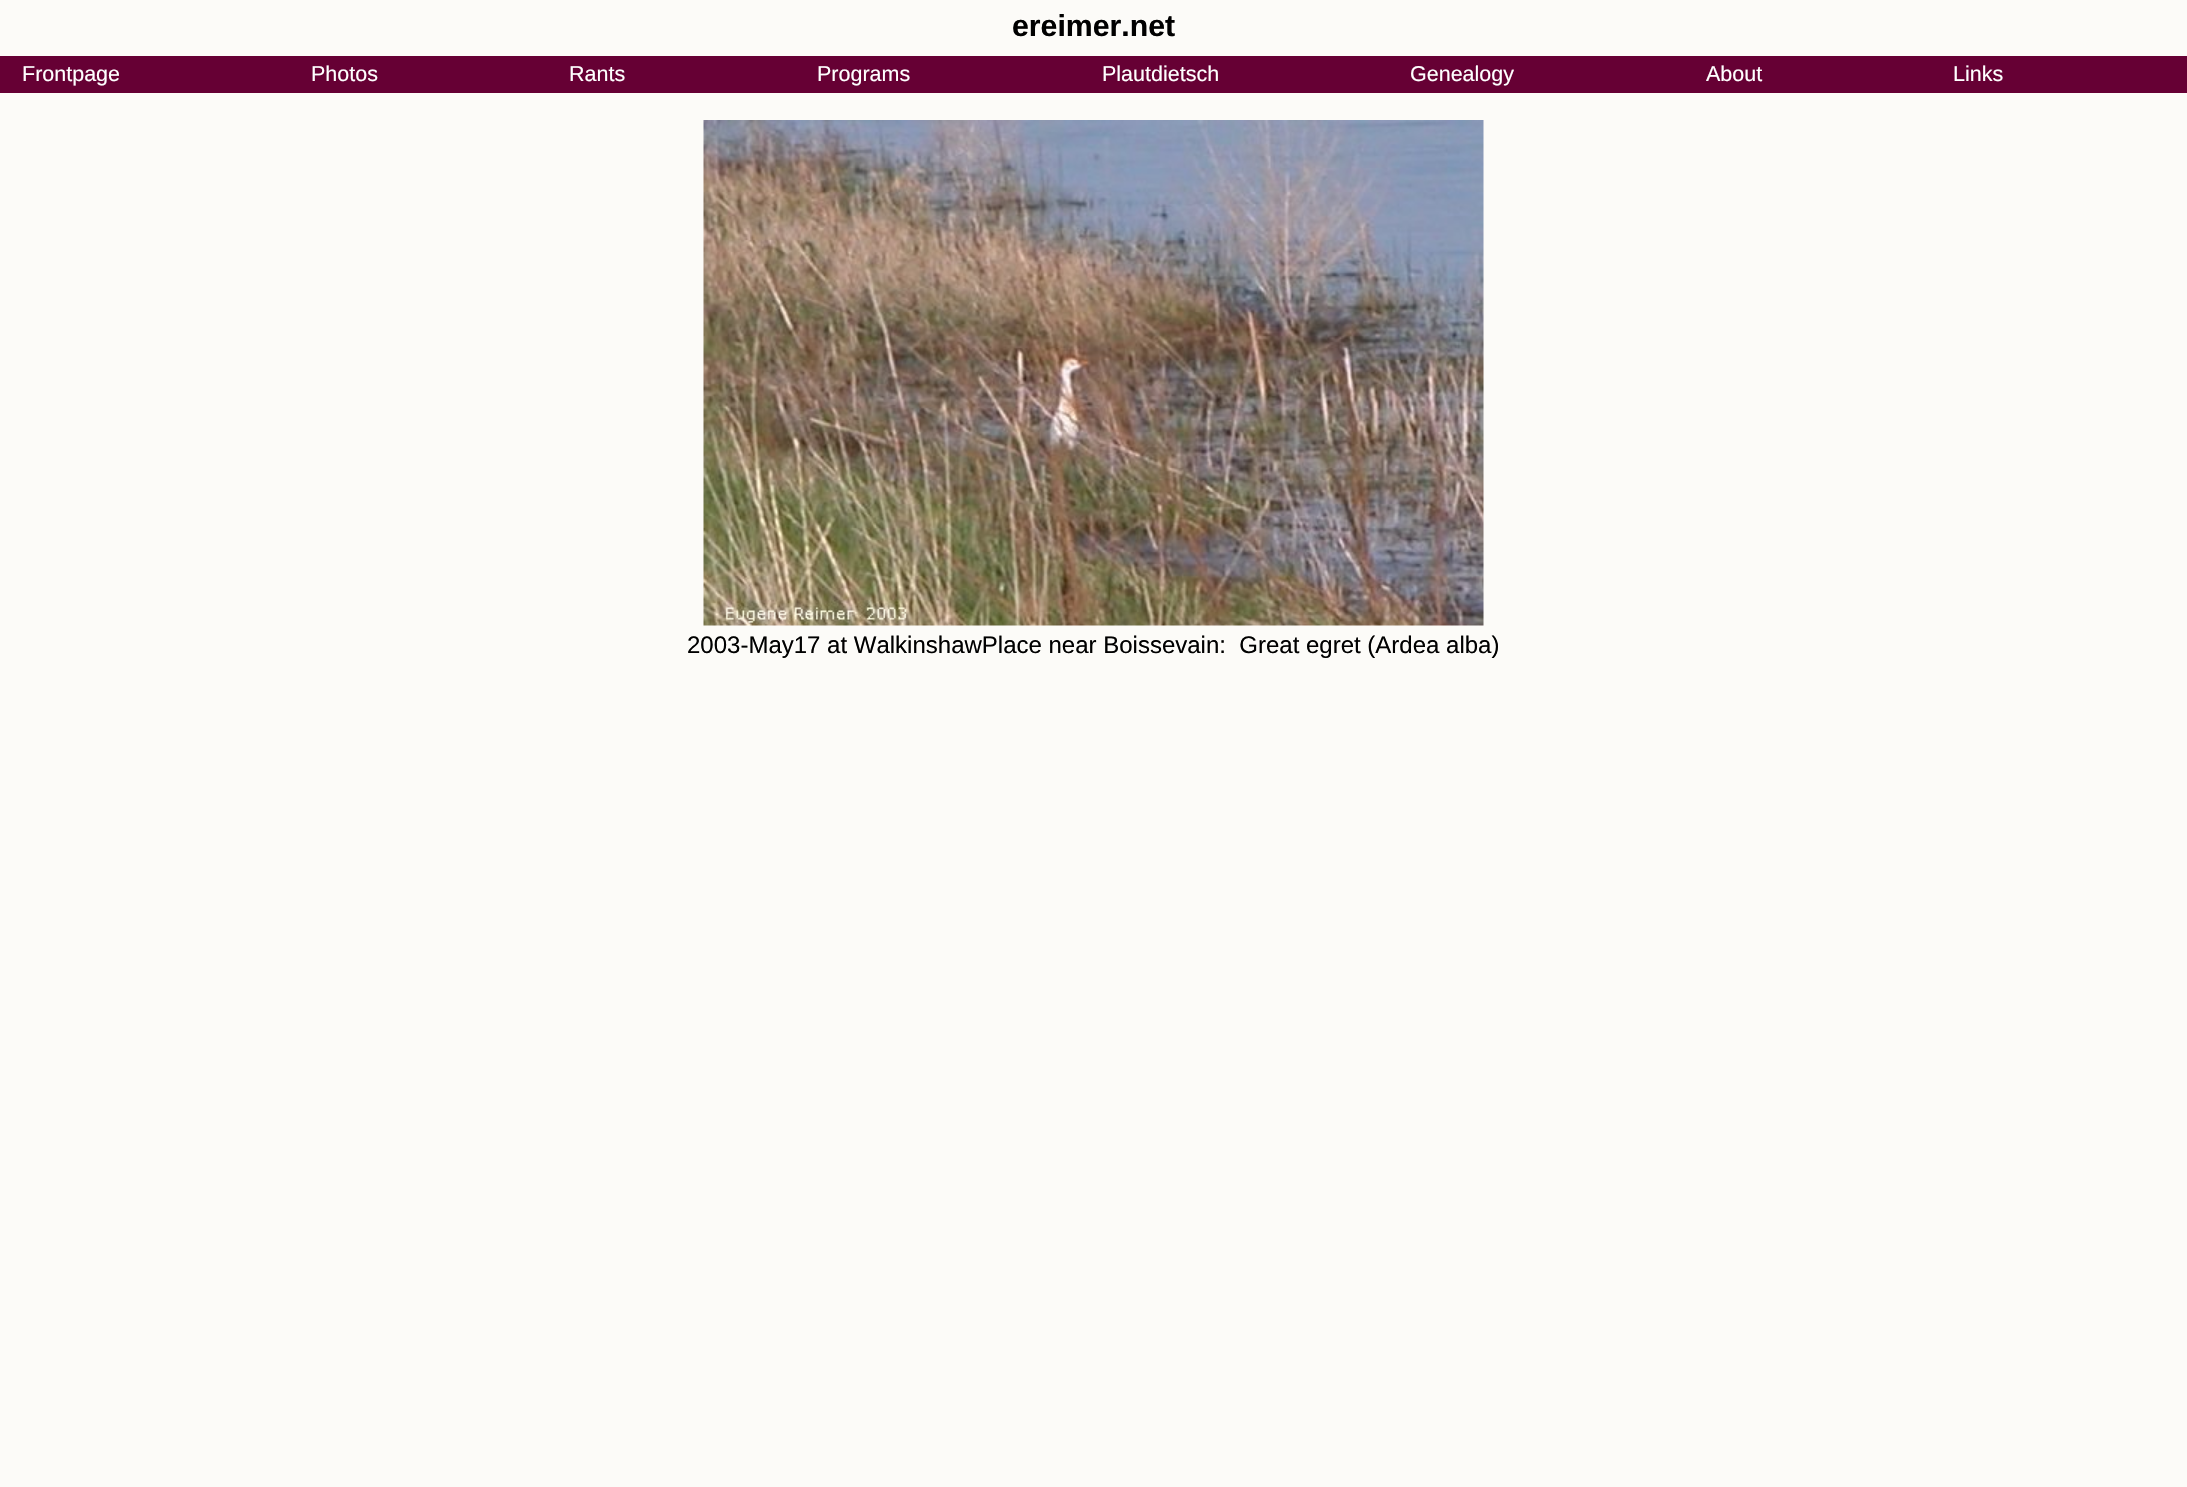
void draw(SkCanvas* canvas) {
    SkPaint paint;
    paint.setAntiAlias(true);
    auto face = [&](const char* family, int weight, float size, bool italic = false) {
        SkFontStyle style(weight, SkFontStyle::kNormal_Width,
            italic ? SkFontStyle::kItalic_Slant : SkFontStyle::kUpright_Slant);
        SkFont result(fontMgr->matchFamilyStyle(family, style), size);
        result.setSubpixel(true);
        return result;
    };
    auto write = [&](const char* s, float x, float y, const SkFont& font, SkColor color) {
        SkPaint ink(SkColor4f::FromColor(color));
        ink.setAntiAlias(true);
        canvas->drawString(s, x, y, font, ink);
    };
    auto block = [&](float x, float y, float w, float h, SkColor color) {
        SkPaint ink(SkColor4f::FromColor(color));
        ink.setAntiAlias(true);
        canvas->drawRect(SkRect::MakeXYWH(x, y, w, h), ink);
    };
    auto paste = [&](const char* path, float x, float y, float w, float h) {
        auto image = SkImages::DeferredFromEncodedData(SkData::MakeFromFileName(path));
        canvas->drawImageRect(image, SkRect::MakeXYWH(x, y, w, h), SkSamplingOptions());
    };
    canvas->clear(SkColorSetRGB(252, 251, 248));
    auto kFont1 = face("Liberation Sans", 700, 30.25f);
    write("ereimer.net", 1012, 36, kFont1, SK_ColorBLACK);
    block(0, 56, 2187, 37, SkColorSetRGB(102, 0, 52));
    auto kFont2 = face("Liberation Sans", 400, 21.5f);
    write("Frontpage", 22, 81, kFont2, SK_ColorWHITE);
    write("Photos", 311, 81, kFont2, SK_ColorWHITE);
    write("Rants", 569, 81, kFont2, SK_ColorWHITE);
    write("Programs", 817, 81, kFont2, SK_ColorWHITE);
    write("Plautdietsch", 1102, 81, kFont2, SK_ColorWHITE);
    write("Genealogy", 1410, 81, kFont2, SK_ColorWHITE);
    write("About", 1706, 81, kFont2, SK_ColorWHITE);
    write("Links", 1953, 81, kFont2, SK_ColorWHITE);
    paste("pic1.png", 703, 120, 781, 506);
    auto kFont3 = face("Liberation Sans", 400, 24);
    write("2003-May17 at WalkinshawPlace near Boissevain:  Great egret (Ardea alba)", 687, 653, kFont3, SK_ColorBLACK);
}
